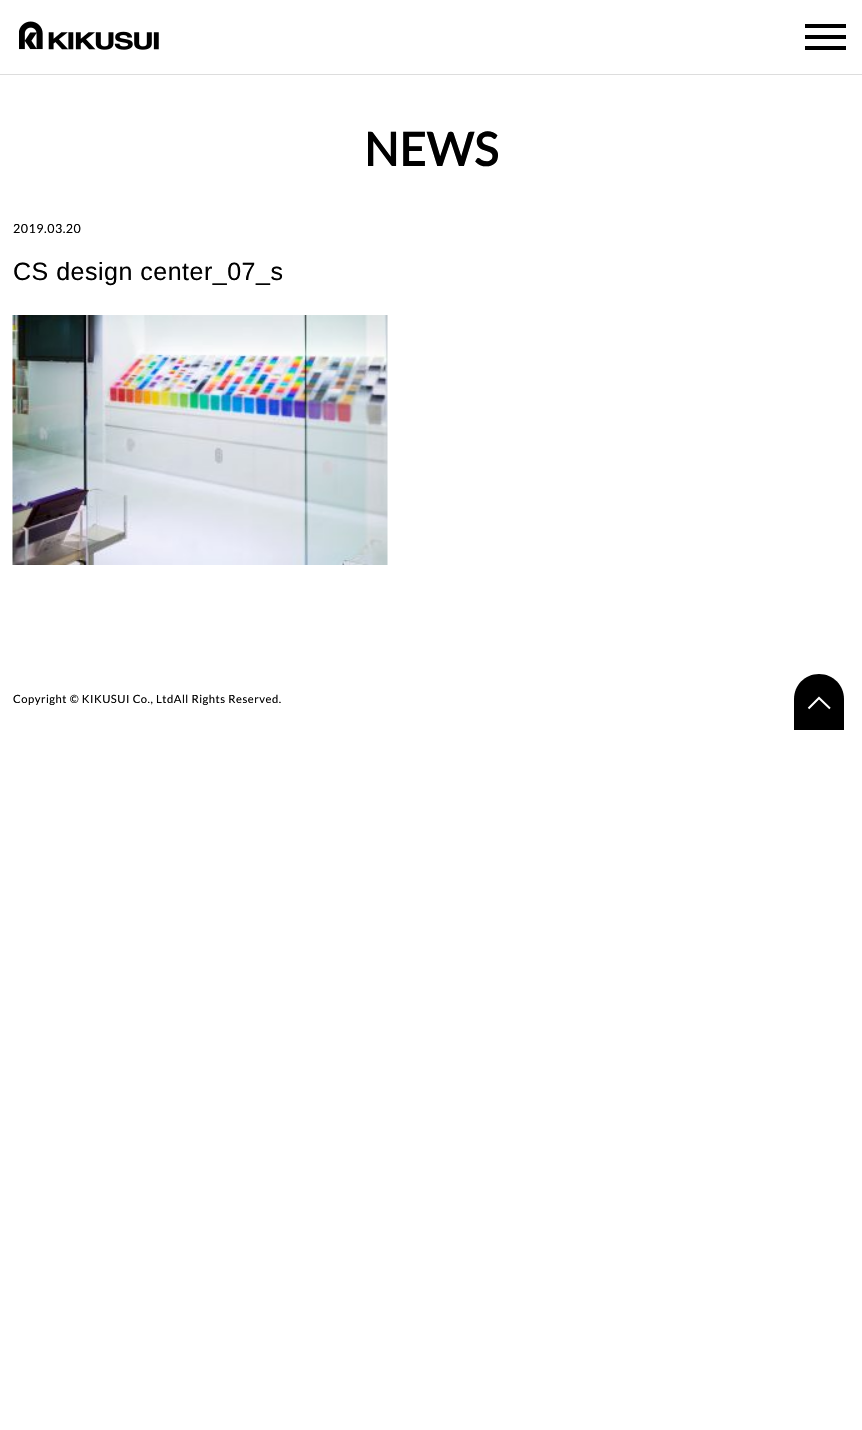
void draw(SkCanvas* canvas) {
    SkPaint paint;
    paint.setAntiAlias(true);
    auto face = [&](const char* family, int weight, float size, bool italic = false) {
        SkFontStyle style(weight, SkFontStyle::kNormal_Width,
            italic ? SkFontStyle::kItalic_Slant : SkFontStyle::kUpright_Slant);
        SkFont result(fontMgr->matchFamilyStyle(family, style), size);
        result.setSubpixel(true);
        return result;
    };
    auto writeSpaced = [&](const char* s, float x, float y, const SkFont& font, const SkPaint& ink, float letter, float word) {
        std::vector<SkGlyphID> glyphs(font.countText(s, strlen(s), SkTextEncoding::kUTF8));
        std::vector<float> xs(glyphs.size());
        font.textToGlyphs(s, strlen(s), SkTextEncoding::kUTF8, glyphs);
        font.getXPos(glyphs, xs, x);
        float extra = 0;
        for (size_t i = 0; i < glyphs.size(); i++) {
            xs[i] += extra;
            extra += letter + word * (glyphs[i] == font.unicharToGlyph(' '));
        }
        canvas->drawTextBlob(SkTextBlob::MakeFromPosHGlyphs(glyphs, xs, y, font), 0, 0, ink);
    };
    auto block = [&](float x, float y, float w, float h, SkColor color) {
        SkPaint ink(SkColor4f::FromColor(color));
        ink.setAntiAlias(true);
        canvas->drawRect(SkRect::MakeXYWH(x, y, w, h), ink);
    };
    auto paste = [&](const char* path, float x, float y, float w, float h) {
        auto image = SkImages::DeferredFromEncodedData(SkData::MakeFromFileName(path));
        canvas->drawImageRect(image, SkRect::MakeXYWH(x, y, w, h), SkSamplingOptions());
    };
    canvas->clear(SK_ColorWHITE);
    block(0, 74, 862, 1, SkColorSetRGB(221, 221, 221));
    paste("pic1.png", 19, 21, 140, 29);
    block(805, 24, 41, 4, SK_ColorBLACK);
    block(805, 35, 41, 4, SK_ColorBLACK);
    block(805, 46, 41, 4, SK_ColorBLACK);
    auto kFont1 = face("Lato", 700, 46);
    paint.setColor(SK_ColorBLACK);
    writeSpaced("NEWS", 364, 166, kFont1, paint, 0.5f, 0);
    auto kFont2 = face("Lato", 400, 12.5f);
    writeSpaced("2019.03.20", 13, 233, kFont2, paint, 0.5f, 0);
    auto kFont3 = face("Liberation Sans", 400, 25);
    writeSpaced("CS design center_07_s", 13, 280, kFont3, paint, 0.5f, 0);
    paste("pic2.png", 12, 315, 376, 250);
    auto kFont4 = face("Lato", 400, 11.25f);
    writeSpaced("Copyright © KIKUSUI Co., LtdAll Rights Reserved.", 13, 703, kFont4, paint, 0.5f, 0);
    canvas->save();
    canvas->clipRect(SkRect::MakeXYWH(794, 674, 50, 56));
    canvas->drawPath(SkPathBuilder().moveTo(819, 674).cubicTo(805, 674, 794, 685, 794, 699).lineTo(794, 731).lineTo(844, 731).lineTo(844, 699).cubicTo(844, 685, 833, 674, 819, 674).detach(), paint);
    canvas->restore();
    paint.setStyle(SkPaint::kStroke_Style);
    paint.setStrokeWidth(2);
    paint.setColor(SK_ColorWHITE);
    canvas->drawPath(SkPathBuilder().moveTo(808.5f, 708.5f).lineTo(819, 698).lineTo(830, 708.5f).detach(), paint);
}
